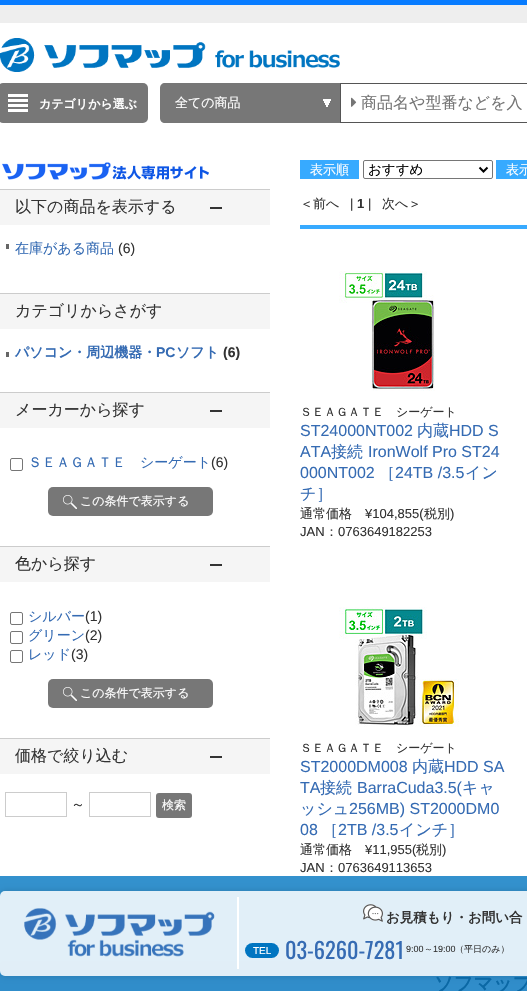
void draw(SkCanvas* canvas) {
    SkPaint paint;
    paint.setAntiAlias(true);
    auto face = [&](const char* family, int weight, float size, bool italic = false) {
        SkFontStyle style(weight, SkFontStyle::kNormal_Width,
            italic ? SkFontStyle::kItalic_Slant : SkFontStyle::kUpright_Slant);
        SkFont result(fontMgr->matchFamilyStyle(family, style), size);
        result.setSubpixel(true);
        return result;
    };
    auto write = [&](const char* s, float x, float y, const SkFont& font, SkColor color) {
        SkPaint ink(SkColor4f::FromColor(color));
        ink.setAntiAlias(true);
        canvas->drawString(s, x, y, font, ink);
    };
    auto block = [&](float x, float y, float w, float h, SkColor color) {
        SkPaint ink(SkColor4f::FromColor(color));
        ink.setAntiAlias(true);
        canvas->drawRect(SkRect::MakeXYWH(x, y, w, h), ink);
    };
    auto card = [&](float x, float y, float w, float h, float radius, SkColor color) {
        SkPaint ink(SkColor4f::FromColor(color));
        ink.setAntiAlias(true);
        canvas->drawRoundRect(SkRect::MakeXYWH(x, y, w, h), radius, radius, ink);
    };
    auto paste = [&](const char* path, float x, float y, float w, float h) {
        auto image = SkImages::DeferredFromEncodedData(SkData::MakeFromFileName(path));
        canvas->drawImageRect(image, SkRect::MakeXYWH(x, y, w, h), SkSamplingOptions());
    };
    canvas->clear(SK_ColorWHITE);
    block(0, 876, 527, 85, SkColorSetRGB(51, 145, 205));
    block(0, 0, 527, 5, SkColorSetRGB(8, 124, 255));
    block(0, 5, 527, 18, SkColorSetRGB(238, 238, 238));
    paste("pic1.png", 0, 38, 340, 34);
    card(-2, 83, 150, 40, 5, SkColorSetRGB(119, 119, 119));
    paste("pic2.png", 8, 94, 20, 18);
    auto kFont1 = face("WenQuanYi Zen Hei", 700, 12);
    write("カテゴリから選ぶ", 39, 108, kFont1, SK_ColorWHITE);
    paint.setColor(SkColorSetRGB(119, 119, 119));
    canvas->drawPath(SkPathBuilder().moveTo(165, 83).lineTo(340, 83).lineTo(340, 123).lineTo(165, 123).cubicTo(162, 123, 160, 121, 160, 118).lineTo(160, 88).cubicTo(160, 85, 162, 83, 165, 83).close().detach(), paint);
    paste("pic3.png", 323, 99, 8, 8);
    auto kFont2 = face("WenQuanYi Zen Hei", 500, 13);
    write("全ての商品", 175, 107, kFont2, SK_ColorWHITE);
    paint.setStyle(SkPaint::kStroke_Style);
    paint.setStrokeWidth(1);
    paint.setColor(SkColorSetRGB(85, 85, 85));
    canvas->drawRect(SkRect::MakeXYWH(340.5f, 83.5f, 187, 39), paint);
    paste("pic4.png", 351, 97, 6, 10);
    auto kFont3 = face("WenQuanYi Zen Hei", 500, 16);
    write("商品名や型番などを入", 361, 108, kFont3, SkColorSetRGB(117, 117, 117));
    paste("pic5.png", 2, 162, 207, 18);
    block(0, 190, 270, 35, SkColorSetRGB(245, 245, 245));
    block(210, 207, 12, 2, SkColorSetRGB(51, 51, 51));
    block(0, 189, 270, 1, SkColorSetRGB(204, 204, 204));
    write("以下の商品を表示する", 15, 212, kFont3, SkColorSetRGB(51, 51, 51));
    auto kFont4 = face("WenQuanYi Zen Hei", 500, 14);
    write("在庫がある商品", 15, 253, kFont4, SkColorSetRGB(53, 107, 179));
    block(6, 244, 3, 5, SkColorSetRGB(102, 102, 102));
    auto kFont5 = face("Liberation Sans", 400, 14);
    write("(6)", 118, 253, kFont5, SkColorSetRGB(51, 51, 51));
    block(0, 294, 270, 35, SkColorSetRGB(245, 245, 245));
    block(0, 293, 270, 1, SkColorSetRGB(204, 204, 204));
    write("カテゴリからさがす", 15, 316, kFont3, SkColorSetRGB(51, 51, 51));
    block(6, 352, 3, 5, SkColorSetRGB(102, 102, 102));
    auto kFont6 = face("WenQuanYi Zen Hei", 700, 14);
    write("パソコン・周辺機器・", 15, 357, kFont6, SkColorSetRGB(53, 107, 179));
    auto kFont7 = face("Liberation Sans", 700, 14);
    write("PC", 156, 357, kFont7, SkColorSetRGB(53, 107, 179));
    write("ソフト", 176, 357, kFont6, SkColorSetRGB(53, 107, 179));
    write("(6)", 223, 357, kFont7, SkColorSetRGB(51, 51, 51));
    block(0, 393, 270, 35, SkColorSetRGB(245, 245, 245));
    block(210, 410, 12, 2, SkColorSetRGB(51, 51, 51));
    block(0, 392, 270, 1, SkColorSetRGB(204, 204, 204));
    write("メーカーから探す", 15, 415, kFont3, SkColorSetRGB(51, 51, 51));
    paint.setColor(SkColorSetRGB(118, 118, 118));
    canvas->drawRoundRect(SkRect::MakeXYWH(10.5f, 458.5f, 12, 12), 1.5f, 1.5f, paint);
    write("ＳＥＡＧＡＴＥ　シーゲート", 28, 467, kFont4, SkColorSetRGB(53, 107, 179));
    write("(6)", 211, 467, kFont5, SkColorSetRGB(51, 51, 51));
    card(48, 487, 165, 29, 5, SkColorSetRGB(119, 119, 119));
    paste("pic6.png", 63, 495, 14, 14);
    auto kFont8 = face("WenQuanYi Zen Hei", 500, 12);
    write("この条件で表示する", 80, 505, kFont8, SK_ColorWHITE);
    block(0, 547, 270, 35, SkColorSetRGB(245, 245, 245));
    block(210, 564, 12, 2, SkColorSetRGB(51, 51, 51));
    block(0, 546, 270, 1, SkColorSetRGB(204, 204, 204));
    write("色から探す", 15, 569, kFont3, SkColorSetRGB(51, 51, 51));
    canvas->drawRoundRect(SkRect::MakeXYWH(10.5f, 612.5f, 12, 12), 1.5f, 1.5f, paint);
    write("シルバー", 28, 621, kFont4, SkColorSetRGB(53, 107, 179));
    write("(1)", 85, 621, kFont5, SkColorSetRGB(51, 51, 51));
    canvas->drawRoundRect(SkRect::MakeXYWH(10.5f, 631.5f, 12, 12), 1.5f, 1.5f, paint);
    write("グリーン", 28, 640, kFont4, SkColorSetRGB(53, 107, 179));
    write("(2)", 85, 640, kFont5, SkColorSetRGB(51, 51, 51));
    canvas->drawRoundRect(SkRect::MakeXYWH(10.5f, 650.5f, 12, 12), 1.5f, 1.5f, paint);
    write("レッド", 28, 659, kFont4, SkColorSetRGB(53, 107, 179));
    write("(3)", 71, 659, kFont5, SkColorSetRGB(51, 51, 51));
    card(48, 679, 165, 29, 5, SkColorSetRGB(119, 119, 119));
    paste("pic6.png", 63, 687, 14, 14);
    write("この条件で表示する", 80, 697, kFont8, SK_ColorWHITE);
    block(0, 739, 270, 35, SkColorSetRGB(245, 245, 245));
    block(210, 756, 12, 2, SkColorSetRGB(51, 51, 51));
    block(0, 738, 270, 1, SkColorSetRGB(204, 204, 204));
    write("価格で絞り込む", 15, 761, kFont3, SkColorSetRGB(51, 51, 51));
    paint.setColor(SkColorSetRGB(204, 204, 204));
    canvas->drawRect(SkRect::MakeXYWH(5.5f, 792.5f, 61, 24), paint);
    write("～", 71, 809, kFont4, SkColorSetRGB(51, 51, 51));
    canvas->drawRect(SkRect::MakeXYWH(89.5f, 792.5f, 61, 24), paint);
    card(156, 793, 36, 25, 3, SkColorSetRGB(119, 119, 119));
    write("検索", 162, 809, kFont8, SK_ColorWHITE);
    block(300, 160, 59, 19, SkColorSetRGB(55, 170, 255));
    write("表示順", 310, 174, kFont2, SK_ColorWHITE);
    paint.setColor(SkColorSetRGB(118, 118, 118));
    canvas->drawRoundRect(SkRect::MakeXYWH(363.5f, 160.5f, 129, 18), 1.5f, 1.5f, paint);
    paint.setStrokeWidth(2);
    paint.setColor(SK_ColorBLACK);
    canvas->drawPath(SkPathBuilder().moveTo(479.5f, 167.5f).lineTo(483.5f, 171.5f).lineTo(487.5f, 167.5f).detach(), paint);
    auto kFont9 = face("WenQuanYi Zen Hei", 500, 13.5f);
    write("おすすめ", 368, 174, kFont9, SK_ColorBLACK);
    block(496, 160, 31, 19, SkColorSetRGB(55, 170, 255));
    write("表示", 506, 174, kFont2, SK_ColorWHITE);
    write("＜前へ", 300, 208, kFont2, SkColorSetRGB(51, 51, 51));
    auto kFont10 = face("Liberation Sans", 400, 13);
    write("|", 350, 208, kFont10, SkColorSetRGB(51, 51, 51));
    auto kFont11 = face("Liberation Sans", 700, 13);
    write("1", 357, 208, kFont11, SkColorSetRGB(51, 51, 51));
    write("|", 368, 208, kFont10, SkColorSetRGB(51, 51, 51));
    write("次へ＞", 382, 208, kFont2, SkColorSetRGB(51, 51, 51));
    block(300, 225, 227, 4, SkColorSetRGB(55, 170, 255));
    paste("pic7.png", 339, 271, 96, 120);
    write("ＳＥＡＧＡＴＥ　シーゲート", 300, 416, kFont8, SkColorSetRGB(51, 51, 51));
    auto kFont12 = face("Liberation Sans", 400, 16);
    write("ST24000NT002", 300, 436, kFont12, SkColorSetRGB(53, 107, 179));
    write("内蔵", 417, 436, kFont3, SkColorSetRGB(53, 107, 179));
    write("HDD S", 449, 436, kFont12, SkColorSetRGB(53, 107, 179));
    write("ATA", 300, 457, kFont12, SkColorSetRGB(53, 107, 179));
    write("接続", 331, 457, kFont3, SkColorSetRGB(53, 107, 179));
    write("IronWolf Pro ST24", 368, 457, kFont12, SkColorSetRGB(53, 107, 179));
    write("000NT002", 300, 478, kFont12, SkColorSetRGB(53, 107, 179));
    write("［", 379, 478, kFont3, SkColorSetRGB(53, 107, 179));
    write("24TB /3.5", 395, 478, kFont12, SkColorSetRGB(53, 107, 179));
    write("イン", 465, 478, kFont3, SkColorSetRGB(53, 107, 179));
    write("チ］", 300, 499, kFont3, SkColorSetRGB(53, 107, 179));
    write("通常価格", 300, 518, kFont2, SkColorSetRGB(51, 51, 51));
    write("¥104,855(", 365, 518, kFont10, SkColorSetRGB(51, 51, 51));
    write("税別", 424, 518, kFont2, SkColorSetRGB(51, 51, 51));
    write(")", 450, 518, kFont10, SkColorSetRGB(51, 51, 51));
    write("JAN", 300, 536, kFont10, SkColorSetRGB(51, 51, 51));
    write("：", 325, 536, kFont2, SkColorSetRGB(51, 51, 51));
    write("0763649182253", 338, 536, kFont10, SkColorSetRGB(51, 51, 51));
    paste("pic8.png", 339, 607, 120, 120);
    write("ＳＥＡＧＡＴＥ　シーゲート", 300, 752, kFont8, SkColorSetRGB(51, 51, 51));
    write("ST2000DM008", 300, 772, kFont12, SkColorSetRGB(53, 107, 179));
    write("内蔵", 412, 772, kFont3, SkColorSetRGB(53, 107, 179));
    write("HDD SA", 444, 772, kFont12, SkColorSetRGB(53, 107, 179));
    write("TA", 300, 793, kFont12, SkColorSetRGB(53, 107, 179));
    write("接続", 320, 793, kFont3, SkColorSetRGB(53, 107, 179));
    write("BarraCuda3.5(", 357, 793, kFont12, SkColorSetRGB(53, 107, 179));
    write("キャ", 462, 793, kFont3, SkColorSetRGB(53, 107, 179));
    write("ッシュ", 300, 814, kFont3, SkColorSetRGB(53, 107, 179));
    write("256MB) ST2000DM0", 349, 814, kFont12, SkColorSetRGB(53, 107, 179));
    write("08", 300, 835, kFont12, SkColorSetRGB(53, 107, 179));
    write("［", 322, 835, kFont3, SkColorSetRGB(53, 107, 179));
    write("2TB /3.5", 338, 835, kFont12, SkColorSetRGB(53, 107, 179));
    write("インチ］", 399, 835, kFont3, SkColorSetRGB(53, 107, 179));
    write("通常価格", 300, 854, kFont2, SkColorSetRGB(51, 51, 51));
    write("¥11,955(", 365, 854, kFont10, SkColorSetRGB(51, 51, 51));
    write("税別", 416, 854, kFont2, SkColorSetRGB(51, 51, 51));
    write(")", 442, 854, kFont10, SkColorSetRGB(51, 51, 51));
    write("JAN", 300, 872, kFont10, SkColorSetRGB(51, 51, 51));
    write("：", 325, 872, kFont2, SkColorSetRGB(51, 51, 51));
    write("0763649113653", 338, 872, kFont10, SkColorSetRGB(51, 51, 51));
    block(0, 961, 3, 3, SkColorSetRGB(50, 144, 204));
    card(0, 961, 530, 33, 3, SkColorSetRGB(48, 141, 202));
    canvas->save();
    canvas->clipPath(SkPathBuilder(SkPathFillType::kEvenOdd).moveTo(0, 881).lineTo(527, 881).lineTo(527, 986).lineTo(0, 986).close().moveTo(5, 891).lineTo(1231, 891).cubicTo(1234, 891, 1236, 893, 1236, 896).lineTo(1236, 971).cubicTo(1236, 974, 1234, 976, 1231, 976).lineTo(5, 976).cubicTo(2, 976, 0, 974, 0, 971).lineTo(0, 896).cubicTo(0, 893, 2, 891, 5, 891).close().detach(), true);
    paint.setStyle(SkPaint::kFill_Style);
    paint.setColor(SkColorSetARGB(38, 0, 0, 0));
    paint.setMaskFilter(SkMaskFilter::MakeBlur(kNormal_SkBlurStyle, 3));
    canvas->drawRoundRect(SkRect::MakeXYWH(0, 891, 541, 85), 5, 5, paint);
    paint.setMaskFilter(nullptr);
    canvas->restore();
    card(0, 891, 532, 85, 5, SkColorSetARGB(217, 255, 255, 255));
    paste("pic9.png", 24, 908, 191, 49);
    block(237, 897, 2, 72, SK_ColorWHITE);
    paste("pic10.png", 363, 904, 20, 18);
    auto kFont13 = face("WenQuanYi Zen Hei", 700, 13.5f);
    write("お見積もり・お問い合", 386, 922, kFont13, SkColorSetRGB(51, 51, 51));
    card(245, 943, 34, 15, 7.5f, SkColorSetRGB(0, 117, 193));
    auto kFont14 = face("Liberation Sans", 400, 10);
    write("TEL", 253, 954, kFont14, SK_ColorWHITE);
    auto kFont15 = face("Oswald", 400, 22.25f);
    write("03-6260-7281", 285, 959, kFont15, SkColorSetRGB(53, 107, 179));
    auto kFont16 = face("Liberation Sans", 400, 9);
    write("9:00", 406, 952, kFont16, SkColorSetRGB(51, 51, 51));
    auto kFont17 = face("WenQuanYi Zen Hei", 500, 9);
    write("～", 424, 952, kFont17, SkColorSetRGB(51, 51, 51));
    write("19:00", 433, 952, kFont16, SkColorSetRGB(51, 51, 51));
    write("（平日のみ）", 455, 952, kFont17, SkColorSetRGB(51, 51, 51));
    auto kFont18 = face("WenQuanYi Zen Hei", 700, 19.25f);
    write("ソフマップ", 434, 990, kFont18, SkColorSetRGB(10, 104, 165));
}
